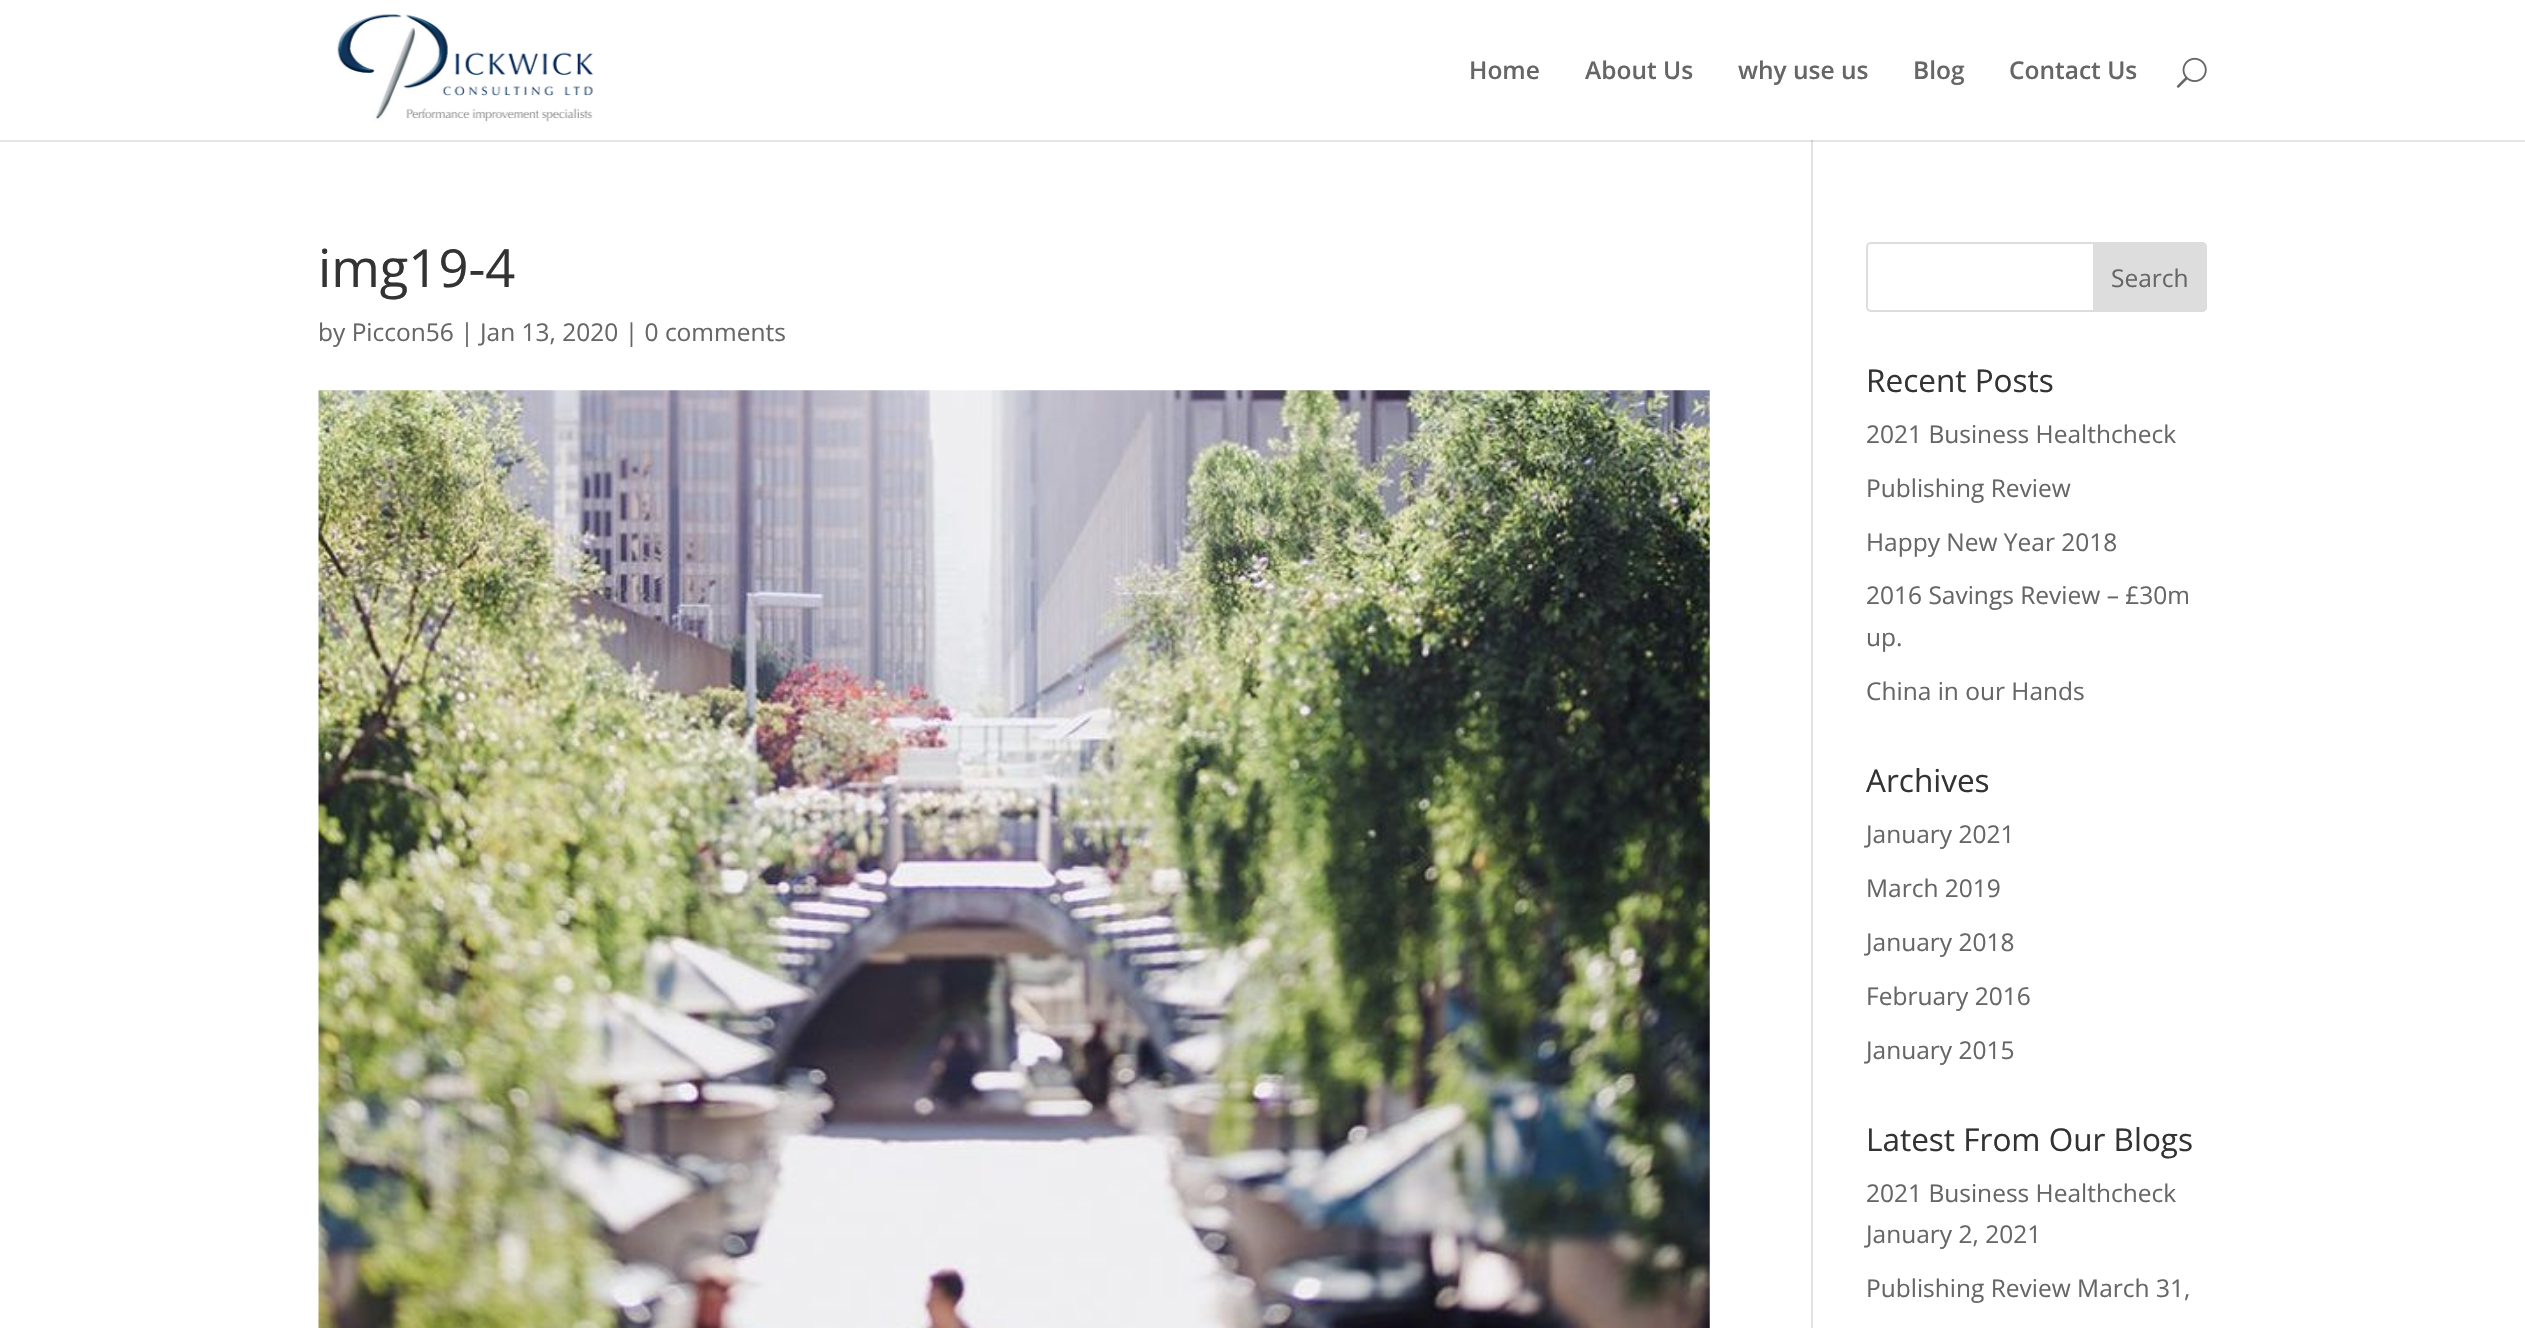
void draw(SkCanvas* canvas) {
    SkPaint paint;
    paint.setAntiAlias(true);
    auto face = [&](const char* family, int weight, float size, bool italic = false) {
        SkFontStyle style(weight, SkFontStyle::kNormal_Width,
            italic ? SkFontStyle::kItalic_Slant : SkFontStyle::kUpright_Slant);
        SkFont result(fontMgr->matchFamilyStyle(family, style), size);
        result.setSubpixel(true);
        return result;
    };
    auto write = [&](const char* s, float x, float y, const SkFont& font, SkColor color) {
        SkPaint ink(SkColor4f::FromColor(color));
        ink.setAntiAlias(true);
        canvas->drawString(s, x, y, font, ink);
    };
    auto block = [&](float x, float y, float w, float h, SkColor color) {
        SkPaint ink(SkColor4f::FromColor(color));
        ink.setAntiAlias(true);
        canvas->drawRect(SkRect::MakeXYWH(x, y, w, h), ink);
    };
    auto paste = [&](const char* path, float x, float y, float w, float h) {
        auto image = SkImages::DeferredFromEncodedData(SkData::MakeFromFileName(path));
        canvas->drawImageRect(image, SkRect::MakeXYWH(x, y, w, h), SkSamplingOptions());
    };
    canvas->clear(SK_ColorWHITE);
    block(0, 140, 2525, 2, SkColorSetRGB(230, 230, 230));
    paste("pic1.png", 337, 14, 257, 108);
    auto kFont1 = face("Open Sans", 600, 24.5f);
    write("Home", 1469, 79, kFont1, SkColorSetRGB(102, 102, 102));
    write("About Us", 1585, 79, kFont1, SkColorSetRGB(102, 102, 102));
    write("why use us", 1738, 79, kFont1, SkColorSetRGB(102, 102, 102));
    write("Blog", 1913, 79, kFont1, SkColorSetRGB(102, 102, 102));
    write("Contact Us", 2009, 79, kFont1, SkColorSetRGB(102, 102, 102));
    paste("pic2.png", 2176, 57, 31, 31);
    block(1811, 140, 2, 1188, SkColorSetRGB(226, 226, 226));
    block(1811, 140, 2, 2, SkColorSetRGB(203, 203, 203));
    auto kFont2 = face("Open Sans", 400, 52.5f);
    write("img19-4", 318, 287, kFont2, SkColorSetRGB(51, 51, 51));
    auto kFont3 = face("Open Sans", 400, 24.5f);
    write("by Piccon56 | Jan 13, 2020 | 0 comments", 318, 341, kFont3, SkColorSetRGB(102, 102, 102));
    paste("pic3.png", 318, 390, 1392, 938);
    paint.setStyle(SkPaint::kStroke_Style);
    paint.setStrokeWidth(2);
    paint.setColor(SkColorSetRGB(221, 221, 221));
    canvas->drawRoundRect(SkRect::MakeXYWH(1867, 243, 339, 68), 4, 4, paint);
    paint.setStyle(SkPaint::kFill_Style);
    canvas->drawPath(SkPathBuilder().moveTo(2094, 243).lineTo(2202, 243).cubicTo(2204, 243, 2206, 245, 2206, 247).lineTo(2206, 307).cubicTo(2206, 309, 2204, 311, 2202, 311).lineTo(2094, 311).close().detach(), paint);
    paint.setStyle(SkPaint::kStroke_Style);
    canvas->drawPath(SkPathBuilder().moveTo(2094, 243).lineTo(2202, 243).cubicTo(2204, 243, 2206, 245, 2206, 247).lineTo(2206, 307).cubicTo(2206, 309, 2204, 311, 2202, 311).lineTo(2094, 311).close().detach(), paint);
    write("Search", 2111, 287, kFont3, SkColorSetRGB(102, 102, 102));
    auto kFont4 = face("Open Sans", 400, 31.5f);
    write("Recent Posts", 1866, 392, kFont4, SkColorSetRGB(51, 51, 51));
    write("2021 Business Healthcheck", 1866, 443, kFont3, SkColorSetRGB(102, 102, 102));
    write("Publishing Review", 1866, 497, kFont3, SkColorSetRGB(102, 102, 102));
    write("Happy New Year 2018", 1866, 551, kFont3, SkColorSetRGB(102, 102, 102));
    write("2016 Savings Review – £30m", 1866, 604, kFont3, SkColorSetRGB(102, 102, 102));
    write("up.", 1866, 646, kFont3, SkColorSetRGB(102, 102, 102));
    write("China in our Hands", 1866, 700, kFont3, SkColorSetRGB(102, 102, 102));
    write("Archives", 1866, 792, kFont4, SkColorSetRGB(51, 51, 51));
    write("January 2021", 1866, 843, kFont3, SkColorSetRGB(102, 102, 102));
    write("March 2019", 1866, 897, kFont3, SkColorSetRGB(102, 102, 102));
    write("January 2018", 1866, 951, kFont3, SkColorSetRGB(102, 102, 102));
    write("February 2016", 1866, 1005, kFont3, SkColorSetRGB(102, 102, 102));
    write("January 2015", 1866, 1059, kFont3, SkColorSetRGB(102, 102, 102));
    write("Latest From Our Blogs", 1866, 1151, kFont4, SkColorSetRGB(51, 51, 51));
    write("2021 Business Healthcheck", 1866, 1202, kFont3, SkColorSetRGB(102, 102, 102));
    write("January 2, 2021", 1866, 1243, kFont3, SkColorSetRGB(102, 102, 102));
    write("Publishing Review March 31,", 1866, 1297, kFont3, SkColorSetRGB(102, 102, 102));
}
